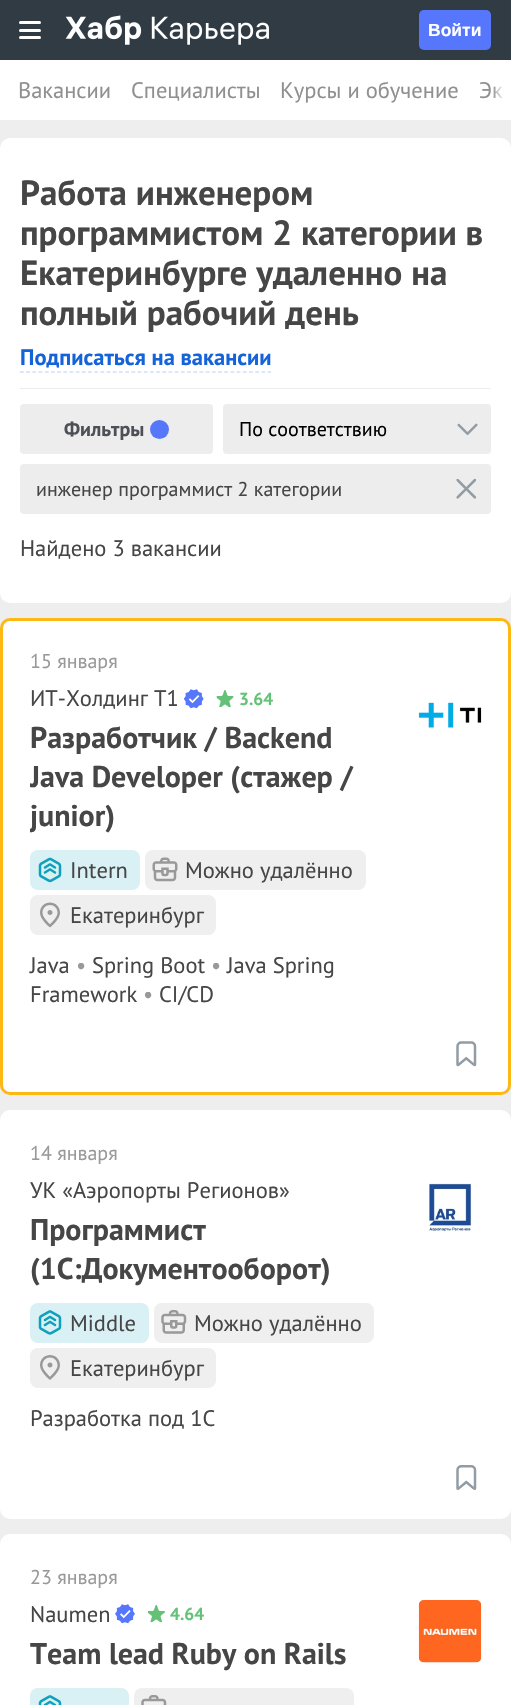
void draw(SkCanvas* canvas) {
    SkPaint paint;
    paint.setAntiAlias(true);
    auto face = [&](const char* family, int weight, float size, bool italic = false) {
        SkFontStyle style(weight, SkFontStyle::kNormal_Width,
            italic ? SkFontStyle::kItalic_Slant : SkFontStyle::kUpright_Slant);
        SkFont result(fontMgr->matchFamilyStyle(family, style), size);
        result.setSubpixel(true);
        return result;
    };
    auto write = [&](const char* s, float x, float y, const SkFont& font, SkColor color) {
        SkPaint ink(SkColor4f::FromColor(color));
        ink.setAntiAlias(true);
        canvas->drawString(s, x, y, font, ink);
    };
    auto block = [&](float x, float y, float w, float h, SkColor color) {
        SkPaint ink(SkColor4f::FromColor(color));
        ink.setAntiAlias(true);
        canvas->drawRect(SkRect::MakeXYWH(x, y, w, h), ink);
    };
    auto card = [&](float x, float y, float w, float h, float radius, SkColor color) {
        SkPaint ink(SkColor4f::FromColor(color));
        ink.setAntiAlias(true);
        canvas->drawRoundRect(SkRect::MakeXYWH(x, y, w, h), radius, radius, ink);
    };
    auto paste = [&](const char* path, float x, float y, float w, float h) {
        auto image = SkImages::DeferredFromEncodedData(SkData::MakeFromFileName(path));
        canvas->drawImageRect(image, SkRect::MakeXYWH(x, y, w, h), SkSamplingOptions());
    };
    canvas->clear(SkColorSetRGB(238, 238, 238));
    block(0, 0, 511, 60, SkColorSetRGB(48, 59, 68));
    card(19, 29, 22, 3, 1.5f, SK_ColorWHITE);
    card(19, 21, 22, 3, 1.5f, SK_ColorWHITE);
    card(19, 36, 22, 3, 1.5f, SK_ColorWHITE);
    paste("pic1.png", 65, 15, 204, 30);
    card(419, 10, 72, 40, 5, SkColorSetRGB(86, 119, 252));
    auto kFont1 = face("Liberation Sans", 700, 17.5f);
    write("Войти", 428, 36, kFont1, SK_ColorWHITE);
    block(0, 60, 507, 60, SK_ColorWHITE);
    auto kFont2 = face("PT Sans", 400, 22.5f);
    write("Эк", 479, 98, kFont2, SkColorSetRGB(144, 144, 144));
    {
        const SkColor colors[] = {SK_ColorWHITE, SkColorSetARGB(128, 255, 255, 255), SkColorSetARGB(0, 255, 255, 255)};
        const float stops[] = {0.2f, 0.75f, 1};
        const SkPoint ends[] = {{511, 90}, {493, 90}};
        paint.setShader(SkGradientShader::MakeLinear(ends, colors, stops, 3, SkTileMode::kClamp));
        paint.setAlpha(255);
    }
    canvas->drawRect(SkRect::MakeXYWH(493, 60, 18, 60), paint);
    write("Вакансии", 18, 98, kFont2, SkColorSetRGB(144, 144, 144));
    write("Специалисты", 131, 98, kFont2, SkColorSetRGB(144, 144, 144));
    write("Курсы и обучение", 280, 98, kFont2, SkColorSetRGB(144, 144, 144));
    card(0, 138, 511, 465, 10, SK_ColorWHITE);
    auto kFont3 = face("PT Sans", 700, 35);
    write("Работа инженером", 20, 205, kFont3, SkColorSetRGB(70, 70, 70));
    write("программистом 2 категории в", 20, 245, kFont3, SkColorSetRGB(70, 70, 70));
    write("Екатеринбурге удаленно на", 20, 285, kFont3, SkColorSetRGB(70, 70, 70));
    write("полный рабочий день", 20, 325, kFont3, SkColorSetRGB(70, 70, 70));
    paint.setStyle(SkPaint::kStroke_Style);
    paint.setStrokeWidth(1.2f);
    paint.setShader(nullptr);
    paint.setColor(SkColorSetRGB(185, 208, 244));
    paint.setPathEffect(SkDashPathEffect::Make({{3.75f, 2.44f}}, 0));
    canvas->drawPath(SkPathBuilder().moveTo(20, 372).lineTo(271, 372).detach(), paint);
    paint.setPathEffect(nullptr);
    auto kFont4 = face("PT Sans", 700, 22.5f);
    write("Подписаться на вакансии", 20, 365, kFont4, SkColorSetRGB(20, 99, 217));
    block(20, 388, 471, 1, SkColorSetRGB(237, 237, 237));
    card(20, 404, 193, 50, 4, SkColorSetRGB(237, 237, 237));
    auto kFont5 = face("PT Sans", 700, 20);
    write("Фильтры", 64, 436, kFont5, SkColorSetRGB(77, 80, 87));
    paint.setStyle(SkPaint::kFill_Style);
    paint.setColor(SkColorSetRGB(86, 119, 252));
    canvas->drawCircle(159.5f, 429.5f, 9.5f, paint);
    card(223, 404, 268, 50, 4, SkColorSetRGB(237, 237, 237));
    paste("pic2.png", 457, 423, 21, 12);
    auto kFont6 = face("PT Sans", 400, 20);
    write("По соответствию", 239, 436, kFont6, SK_ColorBLACK);
    card(20, 464, 471, 50, 4, SkColorSetRGB(237, 237, 237));
    write("инженер программист 2 категории", 36, 496, kFont6, SkColorSetRGB(70, 70, 70));
    paste("pic3.png", 456, 478, 20, 21);
    write("Найдено 3 вакансии", 20, 556, kFont2, SkColorSetRGB(70, 70, 70));
    paint.setColor(SK_ColorWHITE);
    canvas->drawRoundRect(SkRect::MakeXYWH(1.5f, 619.5f, 508, 474), 8.5f, 8.5f, paint);
    paint.setStyle(SkPaint::kStroke_Style);
    paint.setStrokeWidth(3);
    paint.setColor(SkColorSetRGB(253, 184, 20));
    canvas->drawRoundRect(SkRect::MakeXYWH(1.5f, 619.5f, 508, 474), 8.5f, 8.5f, paint);
    write("15 января", 30, 668, kFont6, SkColorSetRGB(153, 153, 153));
    write("ИТ-Холдинг Т1", 30, 706, kFont2, SkColorSetRGB(70, 70, 70));
    paste("pic4.png", 184, 689, 20, 20);
    paste("pic5.png", 216, 690, 18, 18);
    auto kFont7 = face("PT Sans", 700, 17.5f);
    write("3.64", 239, 705, kFont7, SkColorSetRGB(100, 193, 120));
    auto kFont8 = face("PT Sans", 700, 30);
    write("Разработчик / Backend", 30, 748, kFont8, SkColorSetRGB(70, 70, 70));
    canvas->save();
    canvas->clipRect(SkRect::MakeXYWH(30, 719, 364, 116));
    write("Java Developer (стажер /", 30, 787, kFont8, SkColorSetRGB(70, 70, 70));
    write("junior)", 30, 826, kFont8, SkColorSetRGB(70, 70, 70));
    canvas->restore();
    card(30, 850, 110, 40, 8, SkColorSetRGB(217, 240, 244));
    paste("pic6.png", 38, 857, 24, 26);
    write("Intern", 70, 878, kFont2, SkColorSetRGB(70, 70, 70));
    card(145, 850, 221, 40, 8, SkColorSetRGB(239, 239, 239));
    paste("pic7.png", 152, 857, 26, 25);
    write("Можно удалённо", 185, 878, kFont2, SkColorSetRGB(70, 70, 70));
    card(30, 895, 186, 40, 8, SkColorSetRGB(239, 239, 239));
    paste("pic8.png", 40, 902, 20, 26);
    write("Екатеринбург", 70, 923, kFont2, SkColorSetRGB(70, 70, 70));
    write("Java", 30, 973, kFont2, SkColorSetRGB(70, 70, 70));
    write("•", 76, 973, kFont2, SkColorSetRGB(153, 153, 153));
    write("Spring Boot", 92, 973, kFont2, SkColorSetRGB(70, 70, 70));
    write("•", 211, 973, kFont2, SkColorSetRGB(153, 153, 153));
    write("Java Spring", 227, 973, kFont2, SkColorSetRGB(70, 70, 70));
    write("Framework", 30, 1002, kFont2, SkColorSetRGB(70, 70, 70));
    write("•", 143, 1002, kFont2, SkColorSetRGB(153, 153, 153));
    write("CI/CD", 159, 1002, kFont2, SkColorSetRGB(70, 70, 70));
    paste("pic9.png", 418, 702, 64, 26);
    paste("pic10.png", 456, 1041, 21, 26);
    card(0, 1110, 511, 409, 10, SK_ColorWHITE);
    write("14 января", 30, 1160, kFont6, SkColorSetRGB(153, 153, 153));
    write("УК «Аэропорты Регионов»", 30, 1198, kFont2, SkColorSetRGB(70, 70, 70));
    write("Программист", 30, 1240, kFont8, SkColorSetRGB(70, 70, 70));
    write("(1С:Документооборот)", 30, 1279, kFont8, SkColorSetRGB(70, 70, 70));
    card(30, 1303, 119, 40, 8, SkColorSetRGB(217, 240, 244));
    paste("pic11.png", 38, 1310, 24, 25);
    write("Middle", 70, 1331, kFont2, SkColorSetRGB(70, 70, 70));
    card(154, 1303, 220, 40, 8, SkColorSetRGB(239, 239, 239));
    paste("pic12.png", 161, 1310, 26, 24);
    write("Можно удалённо", 194, 1331, kFont2, SkColorSetRGB(70, 70, 70));
    card(30, 1348, 186, 40, 8, SkColorSetRGB(239, 239, 239));
    paste("pic13.png", 40, 1355, 20, 25);
    write("Екатеринбург", 70, 1376, kFont2, SkColorSetRGB(70, 70, 70));
    write("Разработка под 1С", 30, 1426, kFont2, SkColorSetRGB(70, 70, 70));
    paste("pic14.png", 429, 1183, 43, 49);
    paste("pic15.png", 456, 1465, 21, 25);
    card(0, 1534, 511, 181, 10, SK_ColorWHITE);
    write("23 января", 30, 1584, kFont6, SkColorSetRGB(153, 153, 153));
    write("Naumen", 30, 1622, kFont2, SkColorSetRGB(70, 70, 70));
    paste("pic16.png", 115, 1604, 20, 20);
    paste("pic17.png", 147, 1605, 18, 18);
    write("4.64", 170, 1620, kFont7, SkColorSetRGB(100, 193, 120));
    write("Team lead Ruby on Rails", 30, 1664, kFont8, SkColorSetRGB(70, 70, 70));
    card(30, 1688, 99, 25, 8, SkColorSetRGB(217, 240, 244));
    paste("pic18.png", 38, 1695, 24, 10);
    card(134, 1688, 220, 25, 8, SkColorSetRGB(239, 239, 239));
    paste("pic19.png", 141, 1695, 26, 10);
    paste("pic20.png", 418, 1600, 64, 63);
}
